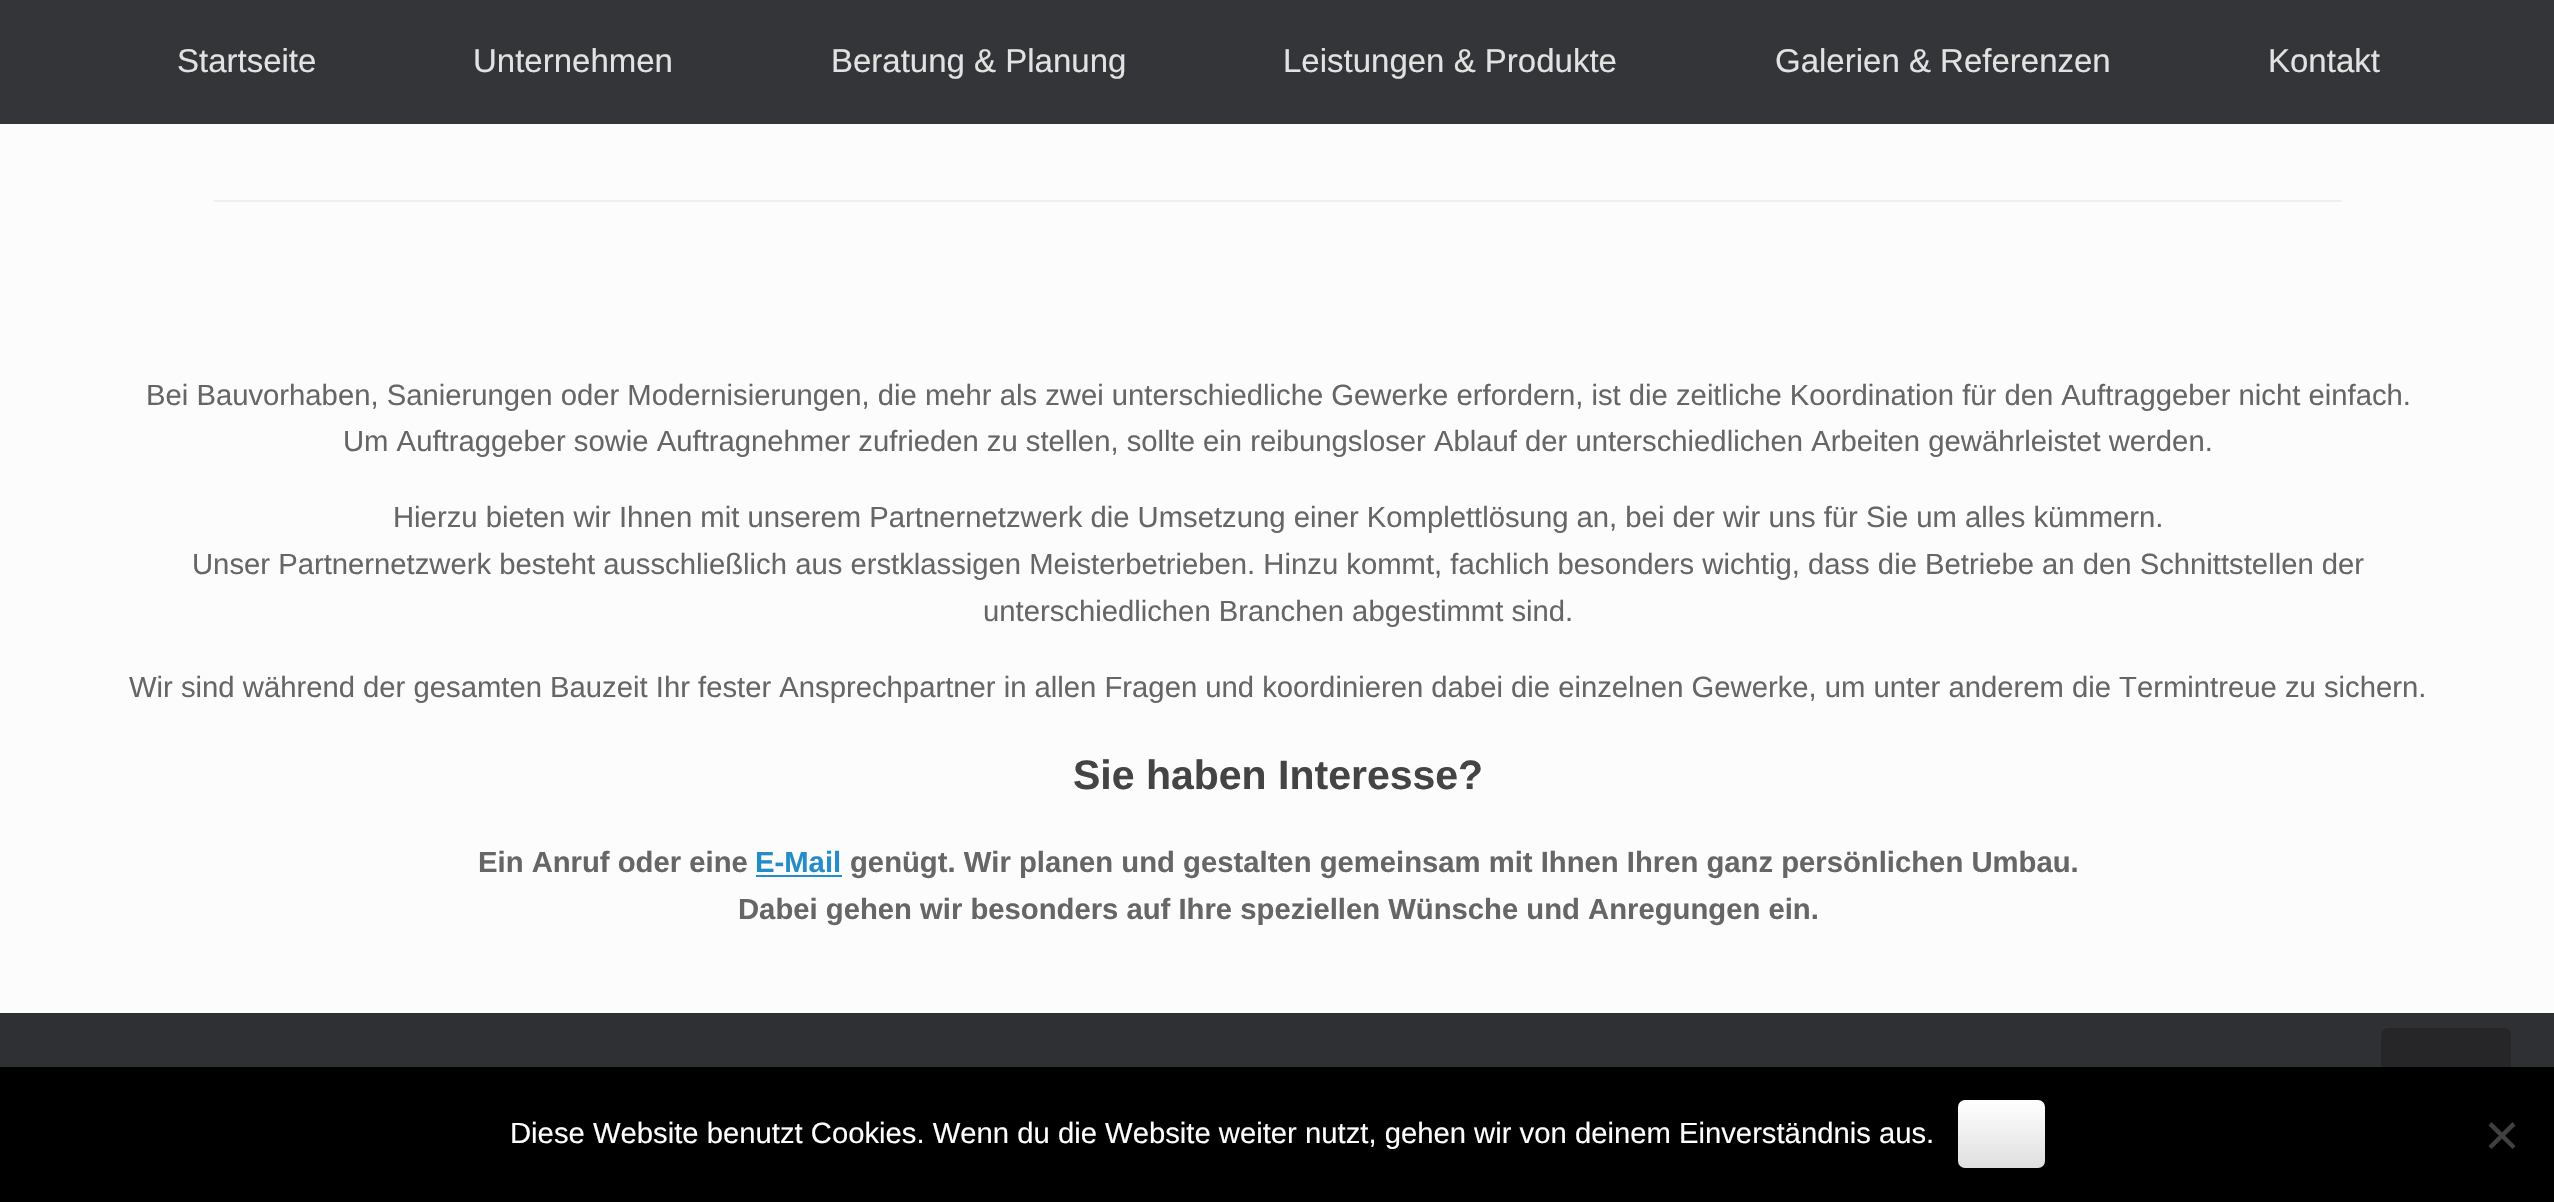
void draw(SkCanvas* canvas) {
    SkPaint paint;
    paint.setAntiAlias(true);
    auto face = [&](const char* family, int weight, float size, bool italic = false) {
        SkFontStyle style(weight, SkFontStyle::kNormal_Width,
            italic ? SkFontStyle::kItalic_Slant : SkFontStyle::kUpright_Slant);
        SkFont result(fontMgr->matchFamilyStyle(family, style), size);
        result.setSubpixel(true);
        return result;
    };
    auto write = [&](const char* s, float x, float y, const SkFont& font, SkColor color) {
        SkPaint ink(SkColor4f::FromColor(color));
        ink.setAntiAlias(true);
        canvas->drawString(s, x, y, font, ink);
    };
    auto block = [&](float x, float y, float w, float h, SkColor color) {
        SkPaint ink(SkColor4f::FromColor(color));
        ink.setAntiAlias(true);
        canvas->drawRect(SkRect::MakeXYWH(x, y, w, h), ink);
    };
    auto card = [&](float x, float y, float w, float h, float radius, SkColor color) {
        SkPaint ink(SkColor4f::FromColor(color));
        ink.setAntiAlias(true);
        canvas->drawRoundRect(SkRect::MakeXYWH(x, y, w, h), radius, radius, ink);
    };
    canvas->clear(SkColorSetRGB(47, 48, 51));
    block(0, 0, 2554, 124, SkColorSetRGB(52, 53, 56));
    auto kFont1 = face("Liberation Sans", 400, 33);
    write("Startseite", 177, 72, kFont1, SkColorSetRGB(226, 226, 226));
    write("Unternehmen", 473, 72, kFont1, SkColorSetRGB(226, 226, 226));
    write("Beratung & Planung", 831, 72, kFont1, SkColorSetRGB(226, 226, 226));
    write("Leistungen & Produkte", 1283, 72, kFont1, SkColorSetRGB(226, 226, 226));
    write("Galerien & Referenzen", 1775, 72, kFont1, SkColorSetRGB(226, 226, 226));
    write("Kontakt", 2268, 72, kFont1, SkColorSetRGB(226, 226, 226));
    block(0, 124, 2554, 889, SkColorSetRGB(252, 252, 252));
    block(214, 200, 2128, 2, SkColorSetRGB(238, 238, 238));
    auto kFont2 = face("Liberation Sans", 400, 29.25f);
    write("Bei Bauvorhaben, Sanierungen oder Modernisierungen, die mehr als zwei unterschiedliche Gewerke erfordern, ist die zeitliche Koordination für den Auftraggeber nicht einfach.", 146, 405, kFont2, SkColorSetRGB(102, 102, 102));
    write("Um Auftraggeber sowie Auftragnehmer zufrieden zu stellen, sollte ein reibungsloser Ablauf der unterschiedlichen Arbeiten gewährleistet werden.", 343, 451, kFont2, SkColorSetRGB(102, 102, 102));
    write("Hierzu bieten wir Ihnen mit unserem Partnernetzwerk die Umsetzung einer Komplettlösung an, bei der wir uns für Sie um alles kümmern.", 393, 527, kFont2, SkColorSetRGB(102, 102, 102));
    write("Unser Partnernetzwerk besteht ausschließlich aus erstklassigen Meisterbetrieben. Hinzu kommt, fachlich besonders wichtig, dass die Betriebe an den Schnittstellen der", 192, 574, kFont2, SkColorSetRGB(102, 102, 102));
    write("unterschiedlichen Branchen abgestimmt sind.", 983, 621, kFont2, SkColorSetRGB(102, 102, 102));
    write("Wir sind während der gesamten Bauzeit Ihr fester Ansprechpartner in allen Fragen und koordinieren dabei die einzelnen Gewerke, um unter anderem die Termintreue zu sichern.", 129, 697, kFont2, SkColorSetRGB(102, 102, 102));
    auto kFont3 = face("Liberation Sans", 700, 41);
    write("Sie haben Interesse?", 1073, 789, kFont3, SkColorSetRGB(68, 68, 68));
    auto kFont4 = face("Liberation Sans", 700, 29.25f);
    write("Ein Anruf oder eine", 478, 872, kFont4, SkColorSetRGB(102, 102, 102));
    write("E-Mail", 755, 872, kFont4, SkColorSetRGB(36, 140, 200));
    block(756, 875, 86, 2, SkColorSetRGB(36, 140, 200));
    write("genügt. Wir planen und gestalten gemeinsam mit Ihnen Ihren ganz persönlichen Umbau.", 850, 872, kFont4, SkColorSetRGB(102, 102, 102));
    write("Dabei gehen wir besonders auf Ihre speziellen Wünsche und Anregungen ein.", 738, 919, kFont4, SkColorSetRGB(102, 102, 102));
    card(2381, 1028, 130, 131, 7, SkColorSetRGB(38, 38, 41));
    block(0, 1067, 2554, 135, SK_ColorBLACK);
    write("Diese Website benutzt Cookies. Wenn du die Website weiter nutzt, gehen wir von deinem Einverständnis aus.", 510, 1143, kFont2, SK_ColorWHITE);
    {
        const SkColor colors[] = {SkColorSetRGB(223, 223, 223), SK_ColorWHITE};
        const float stops[] = {0, 1};
        const SkPoint ends[] = {{1958, 1168}, {1958, 1100}};
        paint.setShader(SkGradientShader::MakeLinear(ends, colors, stops, 2, SkTileMode::kClamp));
        paint.setAlpha(255);
    }
    canvas->drawRoundRect(SkRect::MakeXYWH(1958, 1100, 87, 68), 7, 7, paint);
    paint.setShader(nullptr);
    paint.setColor(SkColorSetRGB(64, 64, 64));
    canvas->drawPath(SkPathBuilder().moveTo(2512.5f, 1122).lineTo(2515.5f, 1125.5f).lineTo(2491.5f, 1149).lineTo(2488.5f, 1146).close().detach(), paint);
    canvas->drawPath(SkPathBuilder().moveTo(2488.5f, 1125.5f).lineTo(2491.5f, 1122).lineTo(2515.5f, 1146).lineTo(2512.5f, 1149).close().detach(), paint);
}
